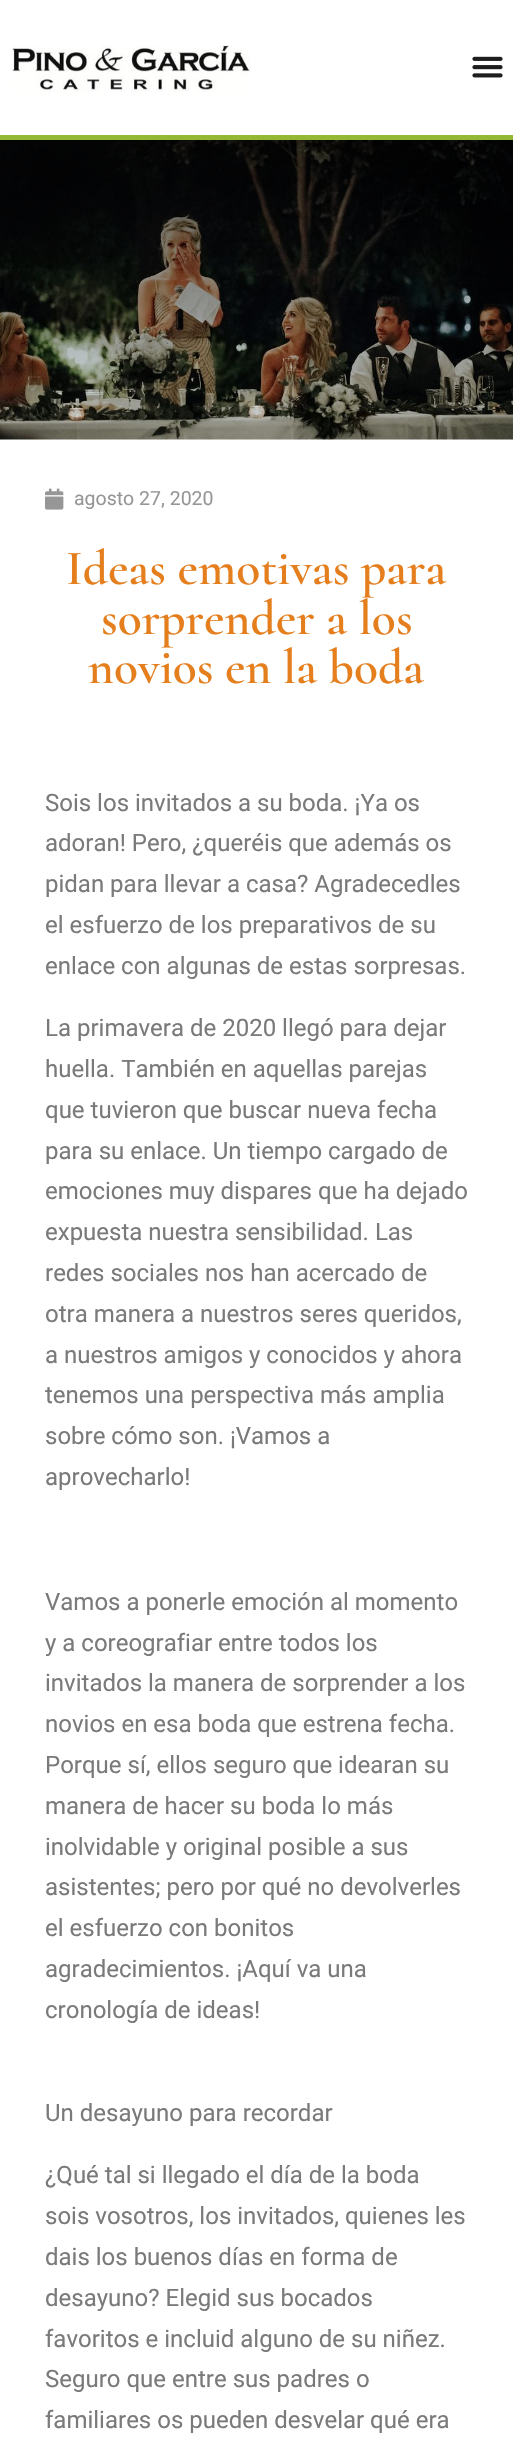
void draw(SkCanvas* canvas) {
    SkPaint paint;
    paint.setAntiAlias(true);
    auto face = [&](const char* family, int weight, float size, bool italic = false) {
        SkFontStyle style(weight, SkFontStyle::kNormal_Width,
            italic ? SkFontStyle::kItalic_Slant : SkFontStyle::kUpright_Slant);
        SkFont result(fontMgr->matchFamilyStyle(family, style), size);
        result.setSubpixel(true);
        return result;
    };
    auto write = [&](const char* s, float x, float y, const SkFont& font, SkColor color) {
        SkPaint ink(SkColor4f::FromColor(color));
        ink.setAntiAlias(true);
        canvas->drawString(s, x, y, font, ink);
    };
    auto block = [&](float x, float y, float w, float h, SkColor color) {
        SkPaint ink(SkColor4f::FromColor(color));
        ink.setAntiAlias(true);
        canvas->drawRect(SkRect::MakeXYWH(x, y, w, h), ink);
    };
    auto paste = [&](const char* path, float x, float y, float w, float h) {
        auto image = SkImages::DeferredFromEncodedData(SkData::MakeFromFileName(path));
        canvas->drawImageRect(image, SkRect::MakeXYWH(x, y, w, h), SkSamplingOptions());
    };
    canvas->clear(SK_ColorWHITE);
    block(0, 135, 513, 5, SkColorSetRGB(148, 184, 52));
    paste("pic1.png", 12, 45, 239, 47);
    paste("pic2.png", 472, 56, 31, 22);
    paste("pic3.png", 0, 140, 513, 300);
    {
        const SkColor colors[] = {SkColorSetARGB(128, 0, 0, 0), SkColorSetARGB(0, 0, 0, 0)};
        const float stops[] = {0, 1};
        const SkPoint ends[] = {{257, 139}, {257, 440}};
        paint.setShader(SkGradientShader::MakeLinear(ends, colors, stops, 2, SkTileMode::kClamp));
        paint.setAlpha(255);
    }
    canvas->drawRect(SkRect::MakeXYWH(0, 140, 513, 287), paint);
    paste("pic4.png", 45, 488, 19, 22);
    auto kFont1 = face("Roboto", 400, 19.5f);
    write("agosto 27, 2020", 74, 505, kFont1, SkColorSetRGB(150, 150, 150));
    auto kFont2 = face("Cormorant", 600, 49.5f);
    write("Ideas emotivas para", 66, 584, kFont2, SkColorSetRGB(229, 126, 29));
    write("sorprender a los", 101, 634, kFont2, SkColorSetRGB(229, 126, 29));
    write("novios en la boda", 88, 683, kFont2, SkColorSetRGB(229, 126, 29));
    auto kFont3 = face("Roboto", 400, 24);
    write("Sois los invitados a su boda. ¡Ya os", 45, 811, kFont3, SkColorSetRGB(122, 122, 122));
    write("adoran! Pero, ¿queréis que además os", 45, 851, kFont3, SkColorSetRGB(122, 122, 122));
    write("pidan para llevar a casa? Agradecedles", 45, 892, kFont3, SkColorSetRGB(122, 122, 122));
    write("el esfuerzo de los preparativos de su", 45, 933, kFont3, SkColorSetRGB(122, 122, 122));
    write("enlace con algunas de estas sorpresas.", 45, 974, kFont3, SkColorSetRGB(122, 122, 122));
    write("La primavera de 2020 llegó para dejar", 45, 1036, kFont3, SkColorSetRGB(122, 122, 122));
    write("huella. También en aquellas parejas", 45, 1077, kFont3, SkColorSetRGB(122, 122, 122));
    write("que tuvieron que buscar nueva fecha", 45, 1118, kFont3, SkColorSetRGB(122, 122, 122));
    write("para su enlace. Un tiempo cargado de", 45, 1159, kFont3, SkColorSetRGB(122, 122, 122));
    write("emociones muy dispares que ha dejado", 45, 1199, kFont3, SkColorSetRGB(122, 122, 122));
    write("expuesta nuestra sensibilidad. Las", 45, 1240, kFont3, SkColorSetRGB(122, 122, 122));
    write("redes sociales nos han acercado de", 45, 1281, kFont3, SkColorSetRGB(122, 122, 122));
    write("otra manera a nuestros seres queridos,", 45, 1322, kFont3, SkColorSetRGB(122, 122, 122));
    write("a nuestros amigos y conocidos y ahora", 45, 1363, kFont3, SkColorSetRGB(122, 122, 122));
    write("tenemos una perspectiva más amplia", 45, 1403, kFont3, SkColorSetRGB(122, 122, 122));
    write("sobre cómo son. ¡Vamos a", 45, 1444, kFont3, SkColorSetRGB(122, 122, 122));
    write("aprovecharlo!", 45, 1485, kFont3, SkColorSetRGB(122, 122, 122));
    write("Vamos a ponerle emoción al momento", 45, 1610, kFont3, SkColorSetRGB(122, 122, 122));
    write("y a coreografiar entre todos los", 45, 1651, kFont3, SkColorSetRGB(122, 122, 122));
    write("invitados la manera de sorprender a los", 45, 1691, kFont3, SkColorSetRGB(122, 122, 122));
    write("novios en esa boda que estrena fecha.", 45, 1732, kFont3, SkColorSetRGB(122, 122, 122));
    write("Porque sí, ellos seguro que idearan su", 45, 1773, kFont3, SkColorSetRGB(122, 122, 122));
    write("manera de hacer su boda lo más", 45, 1814, kFont3, SkColorSetRGB(122, 122, 122));
    write("inolvidable y original posible a sus", 45, 1855, kFont3, SkColorSetRGB(122, 122, 122));
    write("asistentes; pero por qué no devolverles", 45, 1895, kFont3, SkColorSetRGB(122, 122, 122));
    write("el esfuerzo con bonitos", 45, 1936, kFont3, SkColorSetRGB(122, 122, 122));
    write("agradecimientos. ¡Aquí va una", 45, 1977, kFont3, SkColorSetRGB(122, 122, 122));
    write("cronología de ideas!", 45, 2018, kFont3, SkColorSetRGB(122, 122, 122));
    write("Un desayuno para recordar", 45, 2121, kFont3, SkColorSetRGB(122, 122, 122));
    write("¿Qué tal si llegado el día de la boda", 45, 2183, kFont3, SkColorSetRGB(122, 122, 122));
    write("sois vosotros, los invitados, quienes les", 45, 2224, kFont3, SkColorSetRGB(122, 122, 122));
    write("dais los buenos días en forma de", 45, 2265, kFont3, SkColorSetRGB(122, 122, 122));
    write("desayuno? Elegid sus bocados", 45, 2306, kFont3, SkColorSetRGB(122, 122, 122));
    write("favoritos e incluid alguno de su niñez.", 45, 2347, kFont3, SkColorSetRGB(122, 122, 122));
    write("Seguro que entre sus padres o", 45, 2387, kFont3, SkColorSetRGB(122, 122, 122));
    write("familiares os pueden desvelar qué era", 45, 2428, kFont3, SkColorSetRGB(122, 122, 122));
}
